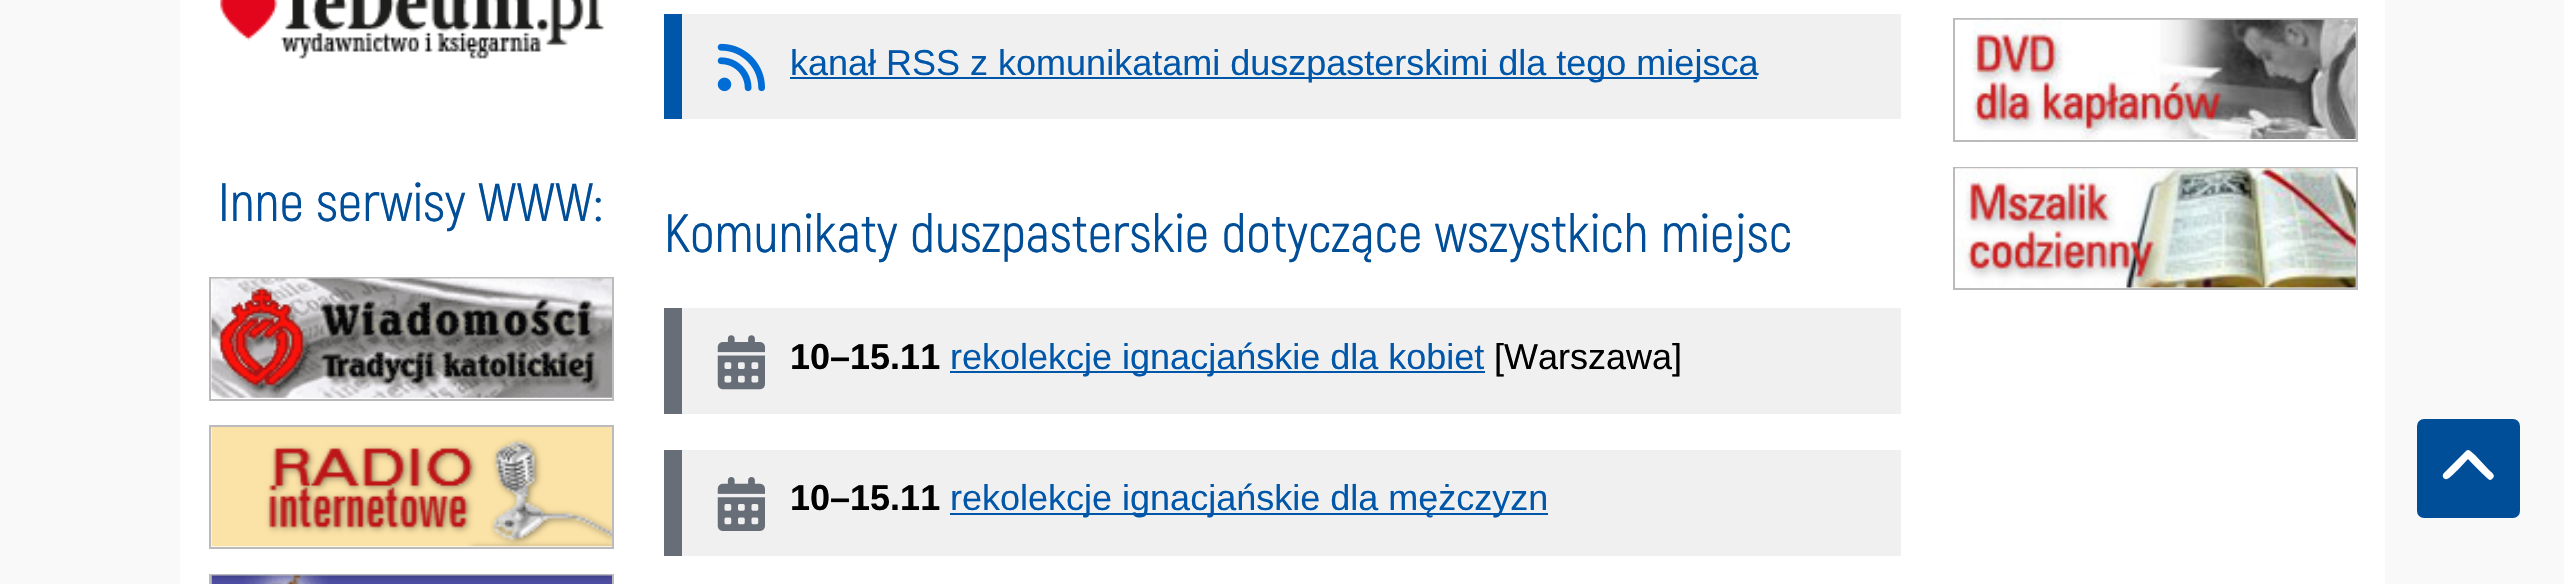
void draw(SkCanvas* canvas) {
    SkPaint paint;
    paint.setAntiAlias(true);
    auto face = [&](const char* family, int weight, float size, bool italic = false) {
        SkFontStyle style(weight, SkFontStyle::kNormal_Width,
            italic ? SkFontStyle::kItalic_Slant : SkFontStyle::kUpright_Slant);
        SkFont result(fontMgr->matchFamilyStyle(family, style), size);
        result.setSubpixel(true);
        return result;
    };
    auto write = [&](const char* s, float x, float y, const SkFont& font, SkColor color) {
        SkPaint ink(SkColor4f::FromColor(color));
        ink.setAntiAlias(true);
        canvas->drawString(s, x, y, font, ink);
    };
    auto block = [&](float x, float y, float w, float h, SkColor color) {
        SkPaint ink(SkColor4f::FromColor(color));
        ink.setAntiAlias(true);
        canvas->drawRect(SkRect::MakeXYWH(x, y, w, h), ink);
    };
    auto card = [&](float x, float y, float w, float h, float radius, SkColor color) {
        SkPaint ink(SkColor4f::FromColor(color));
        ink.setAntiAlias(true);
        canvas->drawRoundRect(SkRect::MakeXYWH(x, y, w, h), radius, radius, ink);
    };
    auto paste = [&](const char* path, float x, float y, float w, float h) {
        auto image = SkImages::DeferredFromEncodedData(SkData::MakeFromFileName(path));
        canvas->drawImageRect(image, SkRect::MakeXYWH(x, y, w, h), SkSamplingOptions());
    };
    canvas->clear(SkColorSetRGB(249, 249, 249));
    block(180, 0, 2205, 584, SK_ColorWHITE);
    paste("pic1.png", 220, 0, 384, 59);
    auto kFont1 = face("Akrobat", 400, 54);
    write("Inne serwisy WWW:", 218, 221, kFont1, SkColorSetRGB(1, 78, 152));
    paint.setStyle(SkPaint::kStroke_Style);
    paint.setStrokeWidth(2);
    paint.setColor(SkColorSetRGB(187, 187, 187));
    canvas->drawRect(SkRect::MakeXYWH(210, 278, 403, 122), paint);
    paste("pic2.png", 211, 278, 401, 120);
    canvas->drawRect(SkRect::MakeXYWH(210, 426, 403, 122), paint);
    paste("pic3.png", 211, 427, 401, 120);
    canvas->drawRect(SkRect::MakeXYWH(210, 575, 403, 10), paint);
    paste("pic4.png", 211, 575, 401, 9);
    block(682, 14, 1219, 105, SkColorSetRGB(240, 240, 240));
    block(664, 14, 18, 105, SkColorSetRGB(0, 87, 170));
    paste("pic5.png", 717, 43, 48, 49);
    block(790, 77, 967, 2, SkColorSetRGB(0, 87, 170));
    auto kFont2 = face("Liberation Sans", 400, 36);
    write("kanał RSS z komunikatami duszpasterskimi dla tego miejsca", 790, 75, kFont2, SkColorSetRGB(0, 87, 170));
    write("Komunikaty duszpasterskie dotyczące wszystkich miejsc", 664, 252, kFont1, SkColorSetRGB(1, 78, 152));
    block(682, 308, 1219, 106, SkColorSetRGB(240, 240, 240));
    block(664, 308, 18, 106, SkColorSetRGB(104, 110, 119));
    paste("pic6.png", 717, 335, 48, 55);
    auto kFont3 = face("Liberation Sans", 700, 36);
    write("10–15.11", 790, 369, kFont3, SK_ColorBLACK);
    block(950, 371, 535, 2, SkColorSetRGB(0, 87, 170));
    write("rekolekcje ignacjańskie dla kobiet", 950, 369, kFont2, SkColorSetRGB(0, 87, 170));
    write("[Warszawa]", 1494, 369, kFont2, SK_ColorBLACK);
    block(682, 450, 1219, 106, SkColorSetRGB(240, 240, 240));
    block(664, 450, 18, 106, SkColorSetRGB(104, 110, 119));
    paste("pic7.png", 717, 477, 48, 54);
    write("10–15.11", 790, 510, kFont3, SK_ColorBLACK);
    block(950, 513, 598, 2, SkColorSetRGB(0, 87, 170));
    write("rekolekcje ignacjańskie dla mężczyzn", 950, 510, kFont2, SkColorSetRGB(0, 87, 170));
    canvas->drawRect(SkRect::MakeXYWH(1954, 19, 403, 122), paint);
    paste("pic8.png", 1955, 19, 401, 120);
    canvas->drawRect(SkRect::MakeXYWH(1954, 168, 403, 121), paint);
    paste("pic9.png", 1955, 168, 401, 120);
    card(2417, 419, 103, 99, 7, SkColorSetRGB(1, 78, 152));
    paint.setStyle(SkPaint::kFill_Style);
    paint.setColor(SK_ColorWHITE);
    canvas->drawPath(SkPathBuilder().moveTo(2466, 451).cubicTo(2469, 448, 2472, 453, 2475, 455).lineTo(2489, 470).cubicTo(2491, 472, 2496, 475, 2493, 478).cubicTo(2492, 479, 2491, 480, 2490, 480).cubicTo(2487, 479, 2471, 462, 2468, 459).cubicTo(2465, 462, 2450, 479, 2447, 479).cubicTo(2444, 480, 2441, 476, 2444, 473).close().detach(), paint);
}
